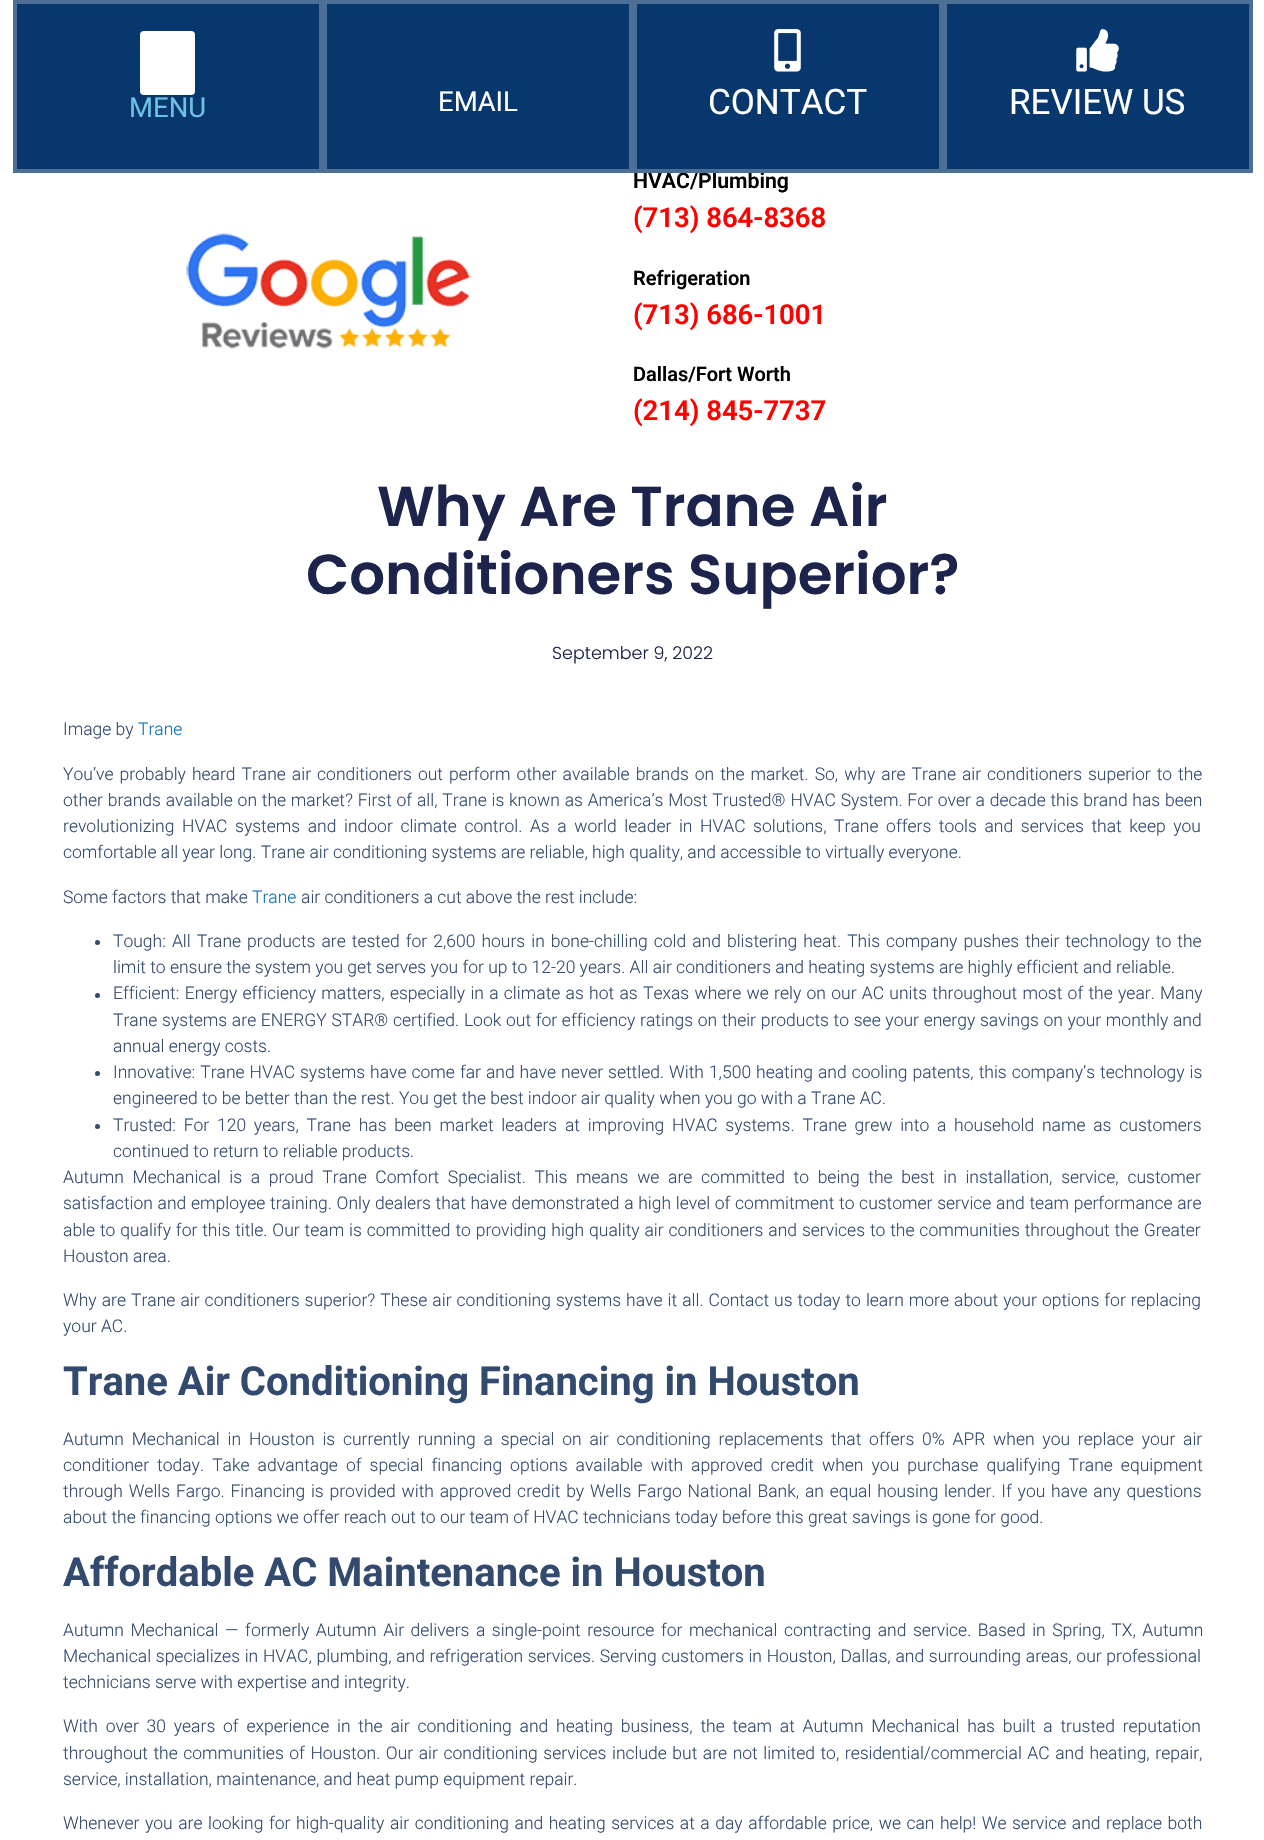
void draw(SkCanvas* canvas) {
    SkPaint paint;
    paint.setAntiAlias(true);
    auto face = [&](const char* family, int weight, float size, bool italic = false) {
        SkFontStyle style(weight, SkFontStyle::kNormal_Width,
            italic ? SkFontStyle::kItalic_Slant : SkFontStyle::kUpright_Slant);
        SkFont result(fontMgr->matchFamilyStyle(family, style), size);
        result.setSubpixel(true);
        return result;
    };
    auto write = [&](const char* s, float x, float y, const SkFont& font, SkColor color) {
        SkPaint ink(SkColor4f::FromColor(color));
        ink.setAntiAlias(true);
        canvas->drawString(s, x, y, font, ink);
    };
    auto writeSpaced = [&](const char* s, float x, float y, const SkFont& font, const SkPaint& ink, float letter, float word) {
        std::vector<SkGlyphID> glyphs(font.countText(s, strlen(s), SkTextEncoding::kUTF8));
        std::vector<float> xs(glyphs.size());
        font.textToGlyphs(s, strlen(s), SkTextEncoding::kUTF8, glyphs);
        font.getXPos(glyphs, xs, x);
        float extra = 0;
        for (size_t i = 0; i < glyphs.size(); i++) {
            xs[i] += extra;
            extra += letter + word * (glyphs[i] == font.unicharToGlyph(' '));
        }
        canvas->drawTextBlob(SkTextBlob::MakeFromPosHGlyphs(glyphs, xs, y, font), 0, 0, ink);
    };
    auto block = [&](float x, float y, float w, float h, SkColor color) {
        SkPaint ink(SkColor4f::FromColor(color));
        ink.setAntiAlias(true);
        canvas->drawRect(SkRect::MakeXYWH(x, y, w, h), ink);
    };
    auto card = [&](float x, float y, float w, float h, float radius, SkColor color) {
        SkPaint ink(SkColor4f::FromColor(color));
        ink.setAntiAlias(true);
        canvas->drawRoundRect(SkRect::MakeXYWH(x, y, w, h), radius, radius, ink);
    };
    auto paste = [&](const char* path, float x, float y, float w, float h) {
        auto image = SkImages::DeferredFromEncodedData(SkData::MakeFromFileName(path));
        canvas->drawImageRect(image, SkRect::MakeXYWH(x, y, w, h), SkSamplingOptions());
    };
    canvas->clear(SK_ColorWHITE);
    block(17, 4, 1232, 165, SkColorSetRGB(8, 55, 109));
    paint.setStyle(SkPaint::kStroke_Style);
    paint.setStrokeWidth(4);
    paint.setColor(SkColorSetRGB(77, 111, 150));
    canvas->drawRect(SkRect::MakeXYWH(15, 2, 306, 169), paint);
    card(140, 31, 55, 64, 4, SkColorSetRGB(255, 254, 254));
    auto kFont1 = face("Roboto", 400, 27.5f);
    write("MENU", 129, 117, kFont1, SkColorSetRGB(110, 193, 228));
    canvas->drawRect(SkRect::MakeXYWH(325, 2, 306, 169), paint);
    write("EMAIL", 438, 111, kFont1, SK_ColorWHITE);
    auto kFont2 = face("Roboto", 600, 21.25f);
    write("HVAC/Plumbing", 633, 188, kFont2, SK_ColorBLACK);
    canvas->drawRect(SkRect::MakeXYWH(635, 2, 306, 169), paint);
    paste("pic1.png", 774, 29, 27, 43);
    auto kFont3 = face("Roboto", 400, 35);
    write("CONTACT", 708, 114, kFont3, SK_ColorWHITE);
    canvas->drawRect(SkRect::MakeXYWH(945, 2, 306, 169), paint);
    paste("pic2.png", 1076, 29, 43, 43);
    write("REVIEW US", 1009, 114, kFont3, SK_ColorWHITE);
    paste("pic3.png", 186, 233, 286, 116);
    auto kFont4 = face("Roboto", 600, 27.5f);
    write("(713) 864-8368", 633, 227, kFont4, SkColorSetRGB(255, 0, 0));
    auto kFont5 = face("Roboto", 600, 20);
    write("Refrigeration", 633, 285, kFont5, SK_ColorBLACK);
    write("(713) 686-1001", 633, 324, kFont4, SkColorSetRGB(255, 0, 0));
    write("Dallas/Fort Worth", 633, 381, kFont5, SK_ColorBLACK);
    write("(214) 845-7737", 633, 420, kFont4, SkColorSetRGB(255, 0, 0));
    auto kFont6 = face("Poppins", 600, 56.25f);
    write("Why Are Trane Air", 377, 526, kFont6, SkColorSetRGB(28, 36, 75));
    write("Conditioners Superior?", 306, 594, kFont6, SkColorSetRGB(28, 36, 75));
    auto kFont7 = face("Poppins", 300, 17.5f);
    write("September 9, 2022", 552, 659, kFont7, SkColorSetRGB(28, 36, 75));
    auto kFont8 = face("Roboto", 300, 17.5f);
    write("Image by", 63, 735, kFont8, SkColorSetRGB(50, 74, 109));
    write("Trane", 138, 735, kFont8, SkColorSetRGB(6, 118, 185));
    paint.setStyle(SkPaint::kFill_Style);
    paint.setColor(SkColorSetRGB(50, 74, 109));
    writeSpaced("You’ve probably heard Trane air conditioners out perform other available brands on the market. So, why are Trane air conditioners superior to the", 63, 780, kFont8, paint, 0, 1.7f);
    writeSpaced("other brands available on the market? First of all, Trane is known as America’s Most Trusted® HVAC System. For over a decade this brand has been", 63, 806, kFont8, paint, 0, 0.5f);
    writeSpaced("revolutionizing HVAC systems and indoor climate control. As a world leader in HVAC solutions, Trane offers tools and services that keep you", 63, 832, kFont8, paint, 0, 3.3f);
    write("comfortable all year long. Trane air conditioning systems are reliable, high quality, and accessible to virtually everyone.", 63, 858, kFont8, SkColorSetRGB(50, 74, 109));
    write("Some factors that make", 63, 903, kFont8, SkColorSetRGB(50, 74, 109));
    write("Trane", 252, 903, kFont8, SkColorSetRGB(6, 118, 185));
    write("air conditioners a cut above the rest include:", 301, 903, kFont8, SkColorSetRGB(50, 74, 109));
    canvas->drawCircle(97.5f, 942.5f, 2.5f, paint);
    writeSpaced("Tough: All Trane products are tested for 2,600 hours in bone-chilling cold and blistering heat. This company pushes their technology to the", 113, 947, kFont8, paint, 0, 1.75f);
    write("limit to ensure the system you get serves you for up to 12-20 years. All air conditioners and heating systems are highly efficient and reliable.", 113, 973, kFont8, SkColorSetRGB(50, 74, 109));
    canvas->drawCircle(97.5f, 995.5f, 2.5f, paint);
    writeSpaced("Efficient: Energy efficiency matters, especially in a climate as hot as Texas where we rely on our AC units throughout most of the year. Many", 113, 999, kFont8, paint, 0, 1);
    writeSpaced("Trane systems are ENERGY STAR® certified. Look out for efficiency ratings on their products to see your energy savings on your monthly and", 113, 1026, kFont8, paint, 0, 0.4f);
    write("annual energy costs.", 113, 1052, kFont8, SkColorSetRGB(50, 74, 109));
    canvas->drawCircle(97.5f, 1073.5f, 2.5f, paint);
    writeSpaced("Innovative: Trane HVAC systems have come far and have never settled. With 1,500 heating and cooling patents, this company’s technology is", 113, 1078, kFont8, paint, 0, 0.7f);
    write("engineered to be better than the rest. You get the best indoor air quality when you go with a Trane AC.", 113, 1104, kFont8, SkColorSetRGB(50, 74, 109));
    canvas->drawCircle(97.5f, 1126.5f, 2.5f, paint);
    writeSpaced("Trusted: For 120 years, Trane has been market leaders at improving HVAC systems. Trane grew into a household name as customers", 113, 1131, kFont8, paint, 0, 3.5f);
    write("continued to return to reliable products.", 113, 1157, kFont8, SkColorSetRGB(50, 74, 109));
    writeSpaced("Autumn Mechanical is a proud Trane Comfort Specialist. This means we are committed to being the best in installation, service, customer", 63, 1183, kFont8, paint, 0, 4.4f);
    writeSpaced("satisfaction and employee training. Only dealers that have demonstrated a high level of commitment to customer service and team performance are", 63, 1209, kFont8, paint, 0, 0.4f);
    writeSpaced("able to qualify for this title. Our team is committed to providing high quality air conditioners and services to the communities throughout the Greater", 63, 1236, kFont8, paint, 0, 0.6f);
    write("Houston area.", 63, 1262, kFont8, SkColorSetRGB(50, 74, 109));
    writeSpaced("Why are Trane air conditioners superior? These air conditioning systems have it all. Contact us today to learn more about your options for replacing", 63, 1306, kFont8, paint, 0, 0.75f);
    write("your AC.", 63, 1332, kFont8, SkColorSetRGB(50, 74, 109));
    auto kFont9 = face("Roboto", 700, 40);
    write("Trane Air Conditioning Financing in Houston", 63, 1395, kFont9, SkColorSetRGB(50, 74, 109));
    writeSpaced("Autumn Mechanical in Houston is currently running a special on air conditioning replacements that offers 0% APR when you replace your air", 63, 1445, kFont8, paint, 0, 3.5f);
    writeSpaced("conditioner today. Take advantage of special financing options available with approved credit when you purchase qualifying Trane equipment", 63, 1471, kFont8, paint, 0, 3.75f);
    writeSpaced("through Wells Fargo. Financing is provided with approved credit by Wells Fargo National Bank, an equal housing lender. If you have any questions", 63, 1497, kFont8, paint, 0, 1.5f);
    write("about the financing options we offer reach out to our team of HVAC technicians today before this great savings is gone for good.", 63, 1523, kFont8, SkColorSetRGB(50, 74, 109));
    write("Affordable AC Maintenance in Houston", 63, 1586, kFont9, SkColorSetRGB(50, 74, 109));
    writeSpaced("Autumn Mechanical — formerly Autumn Air delivers a single-point resource for mechanical contracting and service. Based in Spring, TX, Autumn", 63, 1636, kFont8, paint, 0, 2.25f);
    writeSpaced("Mechanical specializes in HVAC, plumbing, and refrigeration services. Serving customers in Houston, Dallas, and surrounding areas, our professional", 63, 1662, kFont8, paint, 0, 0.4f);
    write("technicians serve with expertise and integrity.", 63, 1688, kFont8, SkColorSetRGB(50, 74, 109));
    writeSpaced("With over 30 years of experience in the air conditioning and heating business, the team at Autumn Mechanical has built a trusted reputation", 63, 1732, kFont8, paint, 0, 3.5f);
    writeSpaced("throughout the communities of Houston. Our air conditioning services include but are not limited to, residential/commercial AC and heating, repair,", 63, 1759, kFont8, paint, 0, 1.25f);
    write("service, installation, maintenance, and heat pump equipment repair.", 63, 1785, kFont8, SkColorSetRGB(50, 74, 109));
    writeSpaced("Whenever you are looking for high-quality air conditioning and heating services at a day affordable price, we can help! We service and replace both", 63, 1829, kFont8, paint, 0, 1.25f);
}
